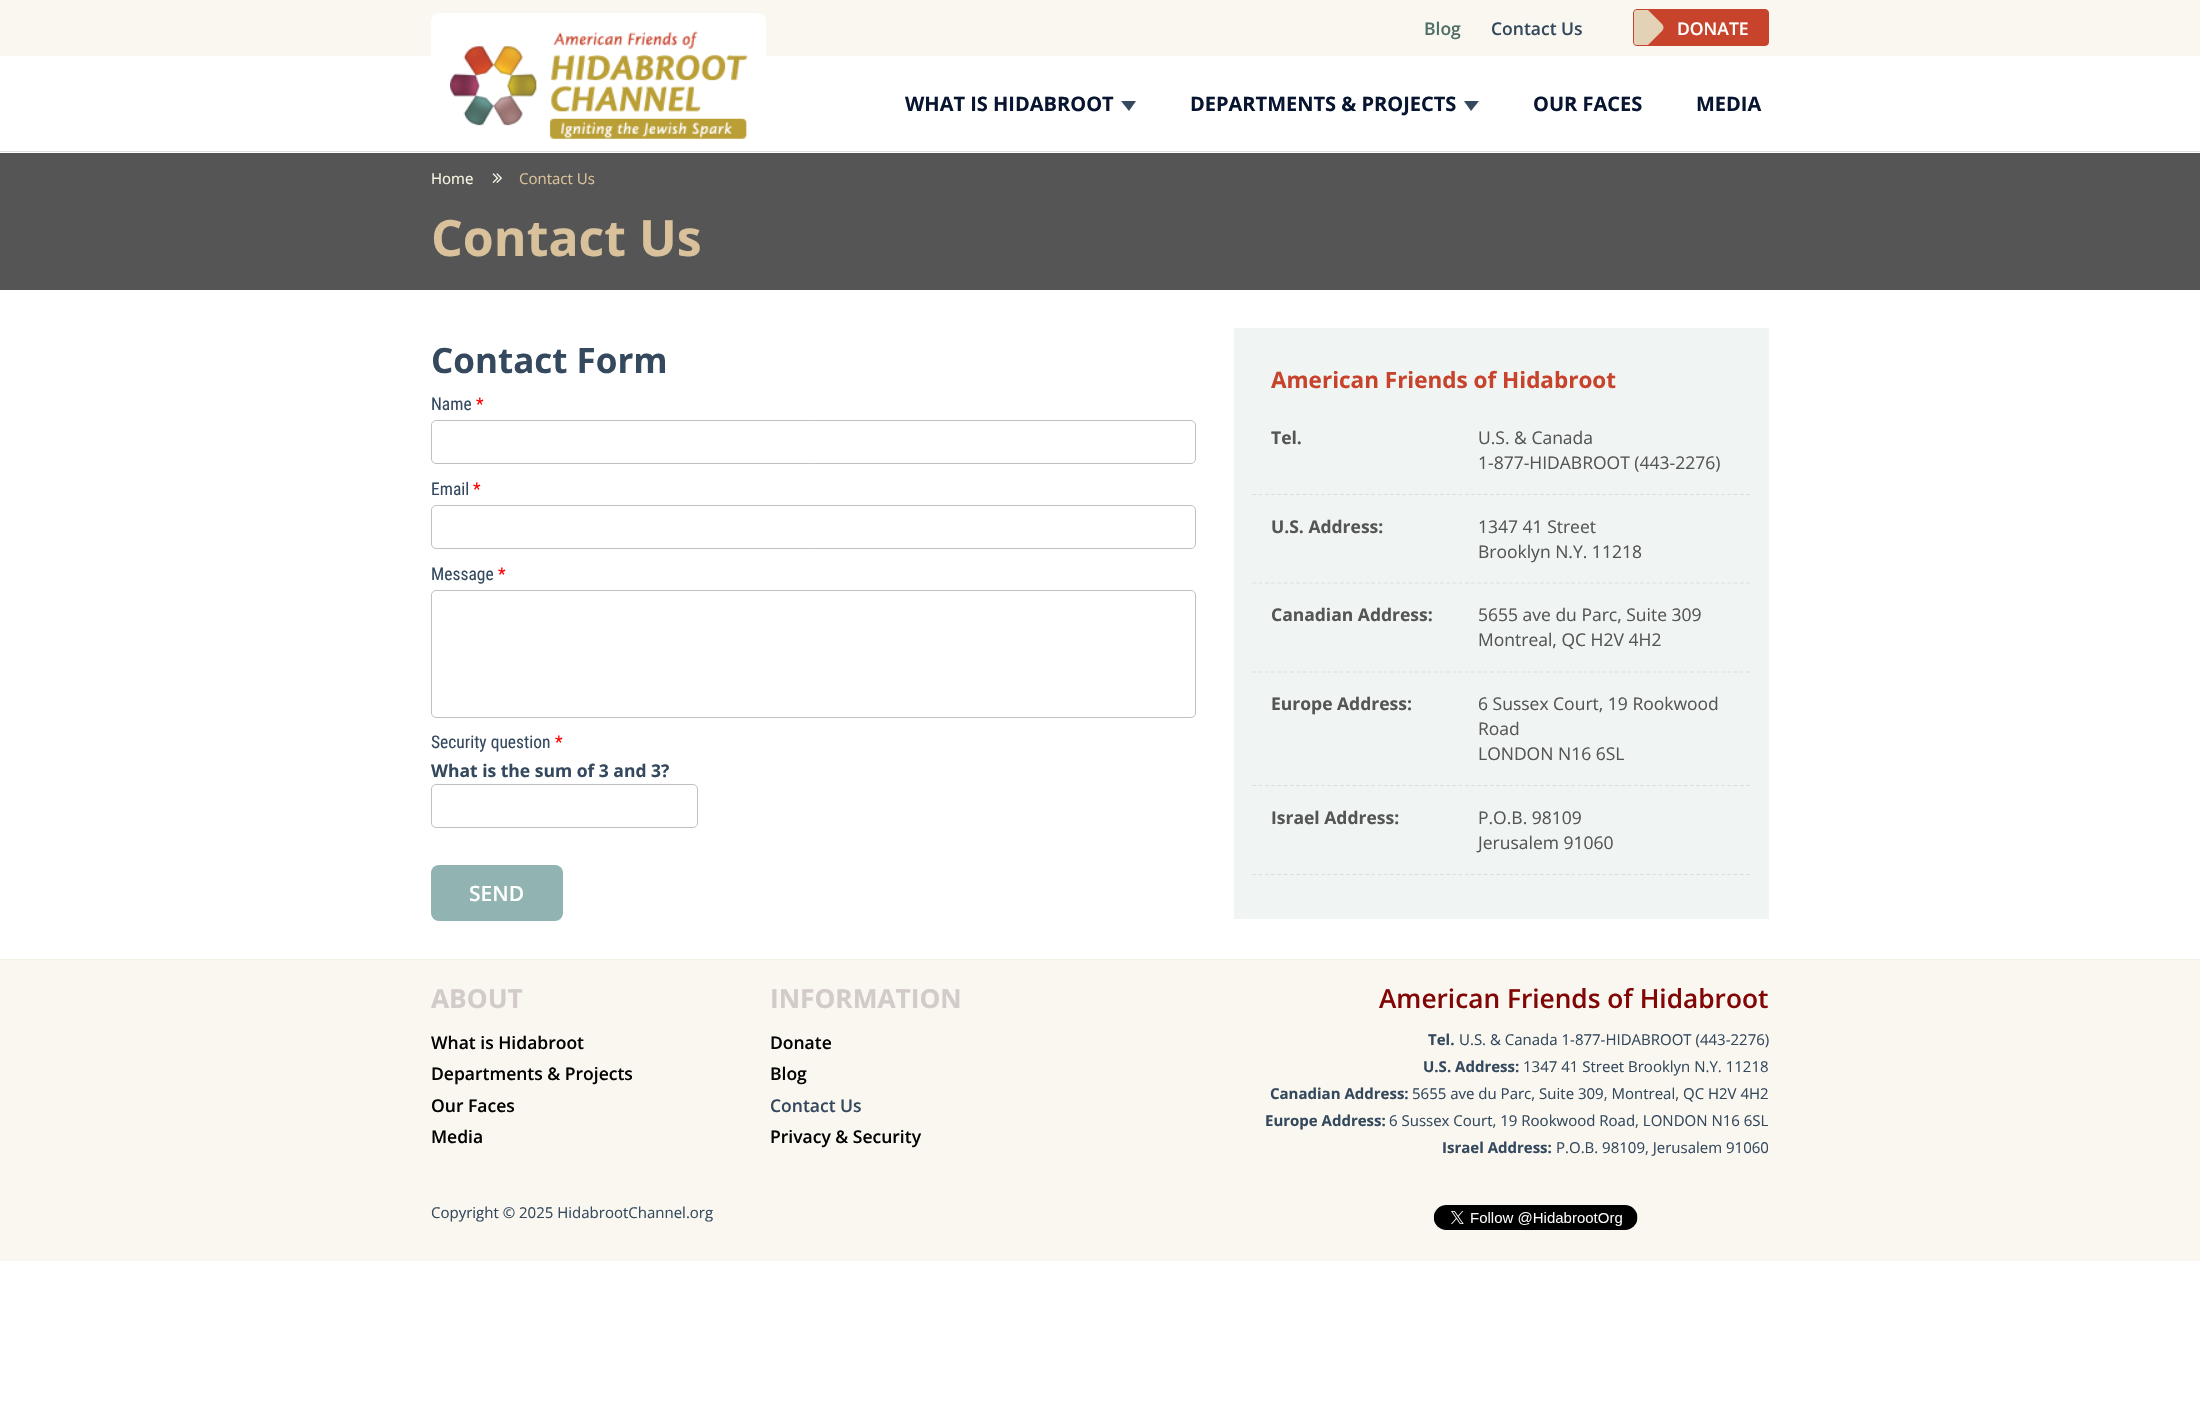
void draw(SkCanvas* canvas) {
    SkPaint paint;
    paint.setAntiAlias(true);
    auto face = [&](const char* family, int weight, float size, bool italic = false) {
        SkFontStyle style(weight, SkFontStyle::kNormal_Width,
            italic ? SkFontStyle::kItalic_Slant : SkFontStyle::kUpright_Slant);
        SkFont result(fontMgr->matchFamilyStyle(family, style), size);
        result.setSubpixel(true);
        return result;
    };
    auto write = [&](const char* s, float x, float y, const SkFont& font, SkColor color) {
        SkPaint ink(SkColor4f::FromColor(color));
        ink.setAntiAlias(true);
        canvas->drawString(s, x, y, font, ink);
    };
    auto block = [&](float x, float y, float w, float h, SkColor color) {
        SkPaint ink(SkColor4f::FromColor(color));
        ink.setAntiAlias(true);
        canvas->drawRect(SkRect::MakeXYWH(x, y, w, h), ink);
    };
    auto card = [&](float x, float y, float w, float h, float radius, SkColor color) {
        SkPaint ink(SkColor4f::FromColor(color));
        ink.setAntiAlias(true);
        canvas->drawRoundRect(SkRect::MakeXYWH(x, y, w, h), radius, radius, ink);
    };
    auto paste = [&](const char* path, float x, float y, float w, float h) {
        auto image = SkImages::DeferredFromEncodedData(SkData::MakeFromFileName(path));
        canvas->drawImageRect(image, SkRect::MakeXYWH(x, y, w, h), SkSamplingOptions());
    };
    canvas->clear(SK_ColorWHITE);
    block(0, 151, 2200, 1, SkColorSetRGB(221, 221, 221));
    block(0, 0, 2200, 56, SkColorSetRGB(249, 247, 239));
    auto kFont1 = face("Open Sans", 600, 17.5f);
    write("Blog", 1424, 35, kFont1, SkColorSetRGB(78, 111, 104));
    write("Contact Us", 1491, 35, kFont1, SkColorSetRGB(52, 73, 94));
    paint.setColor(SkColorSetRGB(199, 67, 43));
    canvas->drawRoundRect(SkRect::MakeXYWH(1633.5f, 9.5f, 135, 36), 3.5f, 3.5f, paint);
    paint.setStyle(SkPaint::kStroke_Style);
    paint.setStrokeWidth(1);
    canvas->drawRoundRect(SkRect::MakeXYWH(1633.5f, 9.5f, 135, 36), 3.5f, 3.5f, paint);
    paint.setStyle(SkPaint::kFill_Style);
    paint.setColor(SkColorSetRGB(228, 210, 183));
    canvas->drawPath(SkPathBuilder().moveTo(1636.5f, 10).lineTo(1648, 10).lineTo(1662, 24).cubicTo(1664, 26, 1664, 29, 1662, 31).lineTo(1648, 45).lineTo(1636.5f, 45).cubicTo(1635, 45, 1634, 44, 1634, 42.5f).lineTo(1634, 12.5f).cubicTo(1634, 11, 1635, 10, 1636.5f, 10).close().detach(), paint);
    write("DONATE", 1677, 35, kFont1, SK_ColorWHITE);
    card(431, 13, 335, 138, 8, SK_ColorWHITE);
    paste("pic1.png", 450, 31, 298, 108);
    auto kFont2 = face("Open Sans", 700, 20);
    write("WHAT IS HIDABROOT", 905, 111, kFont2, SkColorSetRGB(8, 21, 48));
    paint.setColor(SkColorSetRGB(52, 73, 94));
    canvas->drawPath(SkPathBuilder().moveTo(1121, 101).lineTo(1136, 101).lineTo(1129, 111).close().detach(), paint);
    write("DEPARTMENTS & PROJECTS", 1190, 111, kFont2, SkColorSetRGB(8, 21, 48));
    canvas->drawPath(SkPathBuilder().moveTo(1464, 101).lineTo(1479, 101).lineTo(1471, 111).close().detach(), paint);
    write("OUR FACES", 1533, 111, kFont2, SkColorSetRGB(8, 21, 48));
    write("MEDIA", 1696, 111, kFont2, SkColorSetRGB(8, 21, 48));
    block(0, 153, 2200, 137, SkColorSetRGB(85, 85, 85));
    auto kFont3 = face("Open Sans", 400, 15);
    write("Home", 431, 184, kFont3, SkColorSetRGB(250, 247, 229));
    paste("pic2.png", 492, 173, 10, 10);
    write("Contact Us", 519, 184, kFont3, SkColorSetRGB(217, 193, 156));
    auto kFont4 = face("Open Sans", 700, 50);
    write("Contact Us", 431, 256, kFont4, SkColorSetRGB(217, 193, 156));
    auto kFont5 = face("Open Sans", 700, 35);
    write("Contact Form", 431, 373, kFont5, SkColorSetRGB(52, 73, 94));
    auto kFont6 = face("Roboto Condensed", 400, 17.5f);
    write("Name", 431, 410, kFont6, SkColorSetRGB(52, 73, 94));
    write("*", 476, 410, kFont6, SkColorSetRGB(255, 0, 0));
    paint.setStyle(SkPaint::kStroke_Style);
    paint.setColor(SkColorSetRGB(192, 192, 192));
    canvas->drawRoundRect(SkRect::MakeXYWH(431.5f, 420.5f, 764, 43), 4.5f, 4.5f, paint);
    write("Email", 431, 495, kFont6, SkColorSetRGB(52, 73, 94));
    write("*", 473, 495, kFont6, SkColorSetRGB(255, 0, 0));
    canvas->drawRoundRect(SkRect::MakeXYWH(431.5f, 505.5f, 764, 43), 4.5f, 4.5f, paint);
    write("Message", 431, 580, kFont6, SkColorSetRGB(52, 73, 94));
    write("*", 498, 580, kFont6, SkColorSetRGB(255, 0, 0));
    canvas->drawRoundRect(SkRect::MakeXYWH(431.5f, 590.5f, 764, 127), 4.5f, 4.5f, paint);
    write("Security question", 431, 748, kFont6, SkColorSetRGB(52, 73, 94));
    write("*", 555, 748, kFont6, SkColorSetRGB(255, 0, 0));
    auto kFont7 = face("Open Sans", 700, 17.5f);
    write("What is the sum of 3 and 3?", 431, 777, kFont7, SkColorSetRGB(52, 73, 94));
    canvas->drawRoundRect(SkRect::MakeXYWH(431.5f, 784.5f, 266, 43), 4.5f, 4.5f, paint);
    card(431, 865, 132, 56, 8, SkColorSetRGB(145, 179, 177));
    auto kFont8 = face("Open Sans", 600, 21);
    write("SEND", 469, 901, kFont8, SK_ColorWHITE);
    block(1234, 328, 535, 591, SkColorSetRGB(240, 245, 244));
    auto kFont9 = face("Open Sans", 700, 22.5f);
    write("American Friends of Hidabroot", 1271, 388, kFont9, SkColorSetRGB(199, 67, 43));
    paint.setStrokeWidth(1.2f);
    paint.setColor(SkColorSetRGB(221, 221, 221));
    paint.setPathEffect(SkDashPathEffect::Make({{3.75f, 2.5f}}, 0));
    canvas->drawPath(SkPathBuilder().moveTo(1252.5f, 494.5f).lineTo(1750, 494.5f).detach(), paint);
    paint.setPathEffect(nullptr);
    write("Tel.", 1271, 444, kFont7, SkColorSetRGB(85, 85, 85));
    auto kFont10 = face("Open Sans", 400, 17.5f);
    write("U.S. & Canada", 1478, 444, kFont10, SkColorSetRGB(85, 85, 85));
    write("1-877-HIDABROOT (443-2276)", 1478, 469, kFont10, SkColorSetRGB(85, 85, 85));
    paint.setPathEffect(SkDashPathEffect::Make({{3.75f, 2.5f}}, 0));
    canvas->drawPath(SkPathBuilder().moveTo(1252.5f, 583).lineTo(1750, 583).detach(), paint);
    paint.setPathEffect(nullptr);
    write("U.S. Address:", 1271, 533, kFont7, SkColorSetRGB(85, 85, 85));
    write("1347 41 Street", 1478, 533, kFont10, SkColorSetRGB(85, 85, 85));
    write("Brooklyn N.Y. 11218", 1478, 558, kFont10, SkColorSetRGB(85, 85, 85));
    paint.setPathEffect(SkDashPathEffect::Make({{3.75f, 2.5f}}, 0));
    canvas->drawPath(SkPathBuilder().moveTo(1252.5f, 672).lineTo(1750, 672).detach(), paint);
    paint.setPathEffect(nullptr);
    write("Canadian Address:", 1271, 621, kFont7, SkColorSetRGB(85, 85, 85));
    write("5655 ave du Parc, Suite 309", 1478, 621, kFont10, SkColorSetRGB(85, 85, 85));
    write("Montreal, QC H2V 4H2", 1478, 646, kFont10, SkColorSetRGB(85, 85, 85));
    paint.setPathEffect(SkDashPathEffect::Make({{3.75f, 2.5f}}, 0));
    canvas->drawPath(SkPathBuilder().moveTo(1252.5f, 785.5f).lineTo(1750, 785.5f).detach(), paint);
    paint.setPathEffect(nullptr);
    write("Europe Address:", 1271, 710, kFont7, SkColorSetRGB(85, 85, 85));
    write("6 Sussex Court, 19 Rookwood", 1478, 710, kFont10, SkColorSetRGB(85, 85, 85));
    write("Road", 1478, 735, kFont10, SkColorSetRGB(85, 85, 85));
    write("LONDON N16 6SL", 1478, 760, kFont10, SkColorSetRGB(85, 85, 85));
    paint.setPathEffect(SkDashPathEffect::Make({{3.75f, 2.5f}}, 0));
    canvas->drawPath(SkPathBuilder().moveTo(1252.5f, 874.5f).lineTo(1750, 874.5f).detach(), paint);
    paint.setPathEffect(nullptr);
    write("Israel Address:", 1271, 824, kFont7, SkColorSetRGB(85, 85, 85));
    write("P.O.B. 98109", 1478, 824, kFont10, SkColorSetRGB(85, 85, 85));
    write("Jerusalem 91060", 1478, 849, kFont10, SkColorSetRGB(85, 85, 85));
    block(0, 960, 2200, 301, SkColorSetRGB(249, 247, 239));
    block(0, 959, 2200, 1, SkColorSetRGB(245, 240, 230));
    auto kFont11 = face("Open Sans", 700, 26.25f);
    write("ABOUT", 431, 1008, kFont11, SkColorSetRGB(211, 202, 202));
    write("What is Hidabroot", 431, 1049, kFont1, SkColorSetRGB(3, 3, 3));
    write("Departments & Projects", 431, 1080, kFont1, SkColorSetRGB(3, 3, 3));
    write("Our Faces", 431, 1112, kFont1, SkColorSetRGB(3, 3, 3));
    write("Media", 431, 1143, kFont1, SkColorSetRGB(3, 3, 3));
    write("INFORMATION", 770, 1008, kFont11, SkColorSetRGB(211, 202, 202));
    write("Donate", 770, 1049, kFont1, SkColorSetRGB(3, 3, 3));
    write("Blog", 770, 1080, kFont1, SkColorSetRGB(3, 3, 3));
    write("Contact Us", 770, 1112, kFont1, SkColorSetRGB(52, 73, 94));
    write("Privacy & Security", 770, 1143, kFont1, SkColorSetRGB(3, 3, 3));
    auto kFont12 = face("Open Sans", 600, 26.25f);
    write("American Friends of Hidabroot", 1379, 1008, kFont12, SkColorSetRGB(130, 6, 6));
    auto kFont13 = face("Open Sans", 700, 15);
    write("Tel.", 1428, 1045, kFont13, SkColorSetRGB(52, 73, 94));
    write("U.S. & Canada 1-877-HIDABROOT (443-2276)", 1459, 1045, kFont3, SkColorSetRGB(52, 73, 94));
    write("U.S. Address:", 1423, 1072, kFont13, SkColorSetRGB(52, 73, 94));
    write("1347 41 Street Brooklyn N.Y. 11218", 1523, 1072, kFont3, SkColorSetRGB(52, 73, 94));
    write("Canadian Address:", 1270, 1099, kFont13, SkColorSetRGB(52, 73, 94));
    write("5655 ave du Parc, Suite 309, Montreal, QC H2V 4H2", 1412, 1099, kFont3, SkColorSetRGB(52, 73, 94));
    write("Europe Address:", 1265, 1126, kFont13, SkColorSetRGB(52, 73, 94));
    write("6 Sussex Court, 19 Rookwood Road, LONDON N16 6SL", 1389, 1126, kFont3, SkColorSetRGB(52, 73, 94));
    write("Israel Address:", 1442, 1153, kFont13, SkColorSetRGB(52, 73, 94));
    write("P.O.B. 98109, Jerusalem 91060", 1556, 1153, kFont3, SkColorSetRGB(52, 73, 94));
    write("Copyright © 2025 HidabrootChannel.org", 431, 1218, kFont3, SkColorSetRGB(52, 73, 94));
    paste("pic3.png", 1433, 1205, 205, 25);
}
